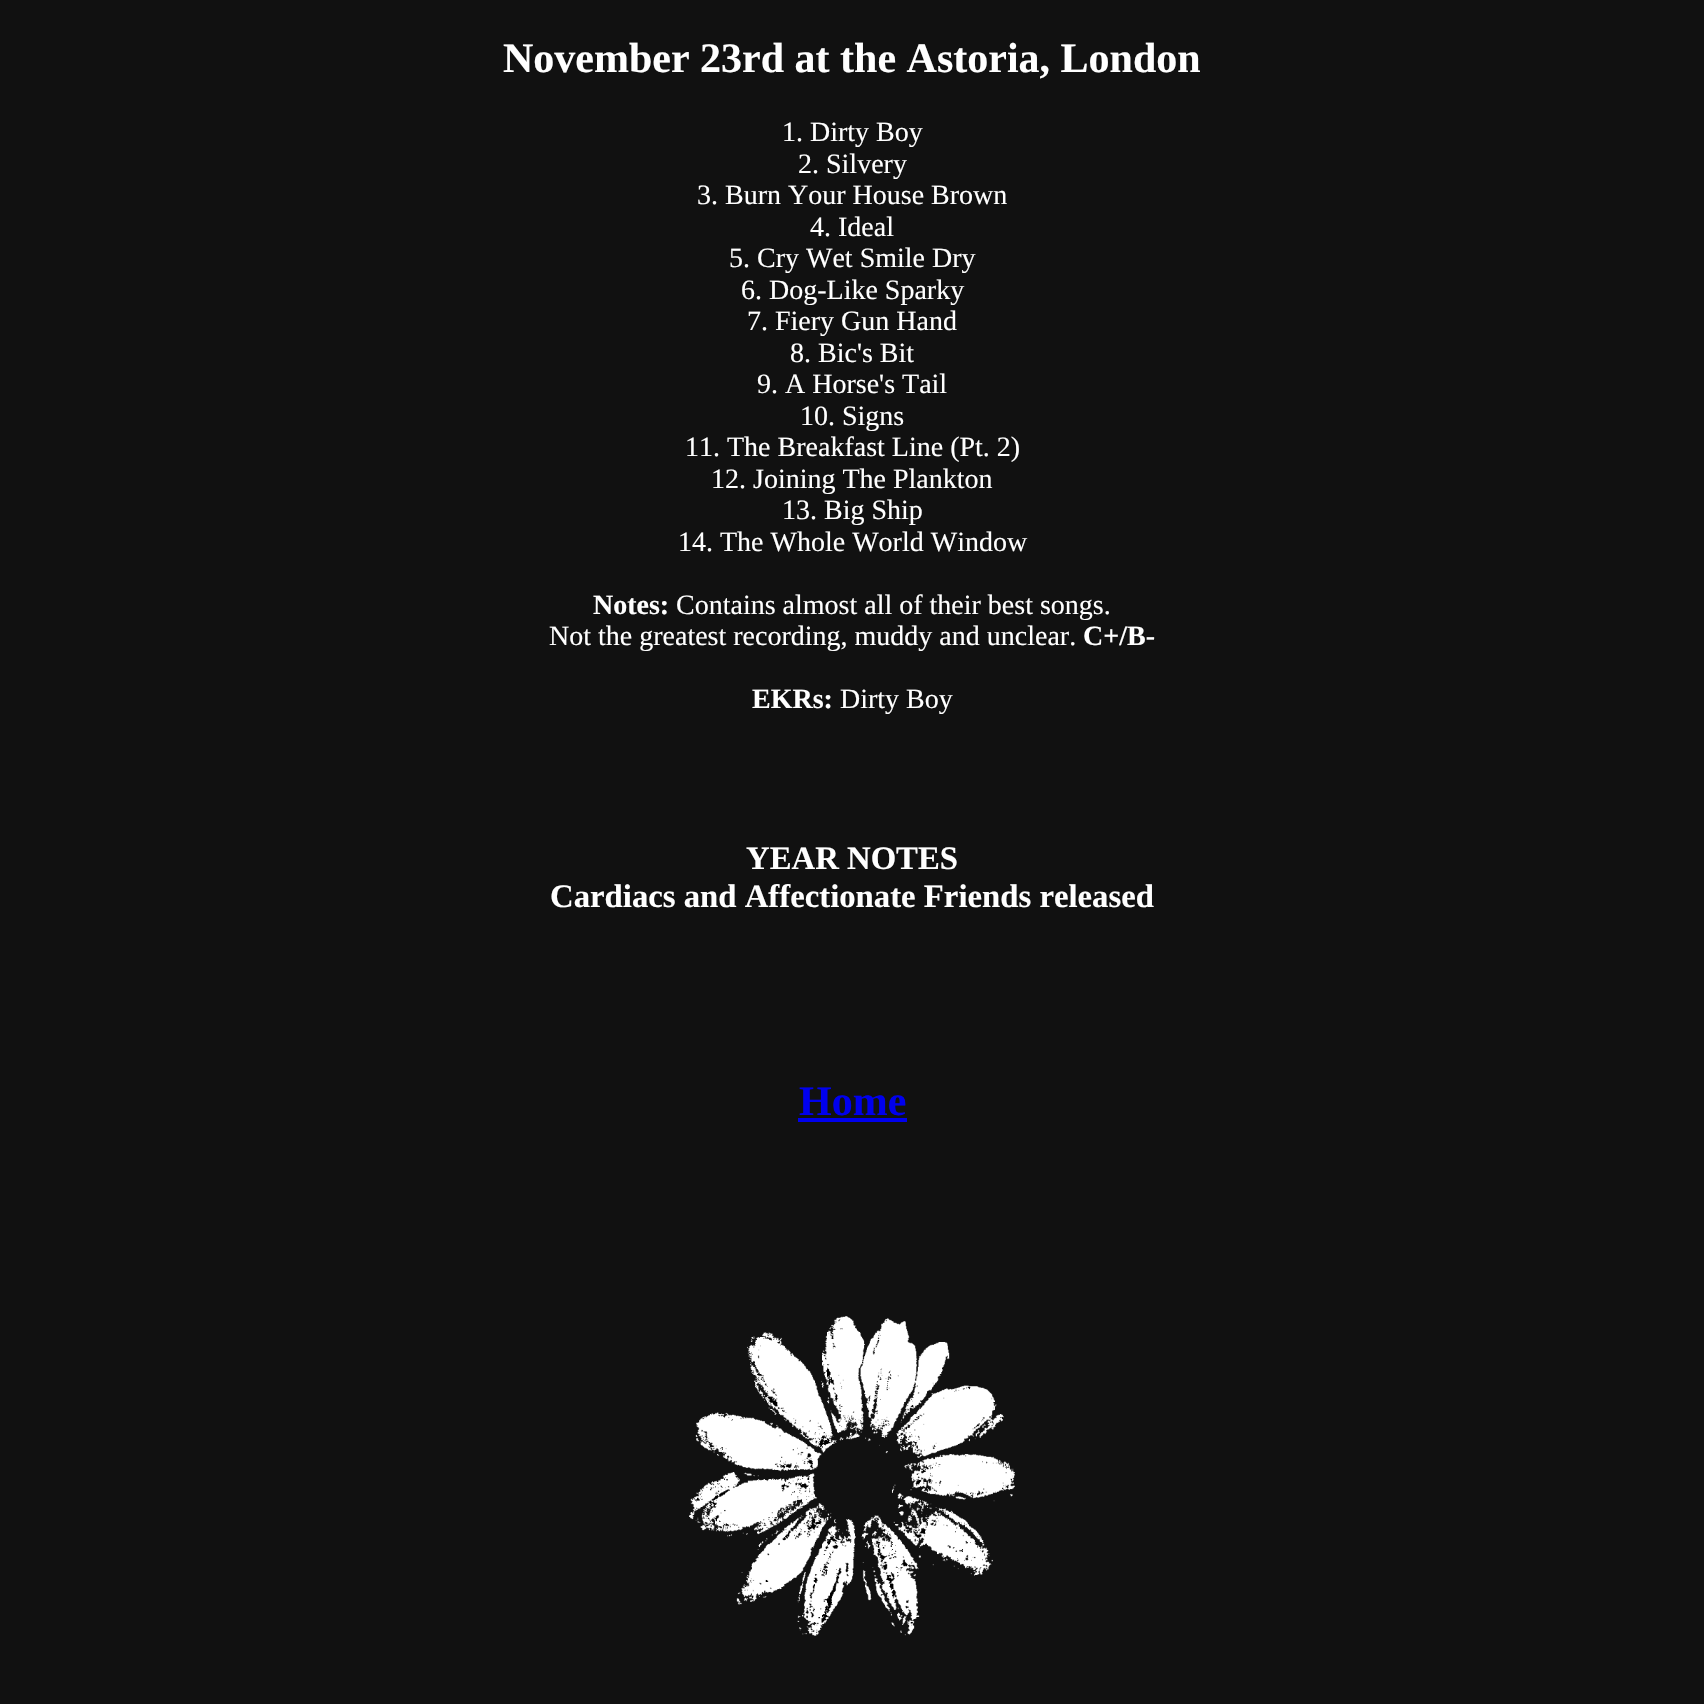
void draw(SkCanvas* canvas) {
    SkPaint paint;
    paint.setAntiAlias(true);
    auto face = [&](const char* family, int weight, float size, bool italic = false) {
        SkFontStyle style(weight, SkFontStyle::kNormal_Width,
            italic ? SkFontStyle::kItalic_Slant : SkFontStyle::kUpright_Slant);
        SkFont result(fontMgr->matchFamilyStyle(family, style), size);
        result.setSubpixel(true);
        return result;
    };
    auto write = [&](const char* s, float x, float y, const SkFont& font, SkColor color) {
        SkPaint ink(SkColor4f::FromColor(color));
        ink.setAntiAlias(true);
        canvas->drawString(s, x, y, font, ink);
    };
    auto block = [&](float x, float y, float w, float h, SkColor color) {
        SkPaint ink(SkColor4f::FromColor(color));
        ink.setAntiAlias(true);
        canvas->drawRect(SkRect::MakeXYWH(x, y, w, h), ink);
    };
    auto paste = [&](const char* path, float x, float y, float w, float h) {
        auto image = SkImages::DeferredFromEncodedData(SkData::MakeFromFileName(path));
        canvas->drawImageRect(image, SkRect::MakeXYWH(x, y, w, h), SkSamplingOptions());
    };
    canvas->clear(SkColorSetRGB(17, 17, 17));
    auto kFont1 = face("Liberation Serif", 700, 42);
    write("November 23rd at the Astoria, London", 503, 72, kFont1, SK_ColorWHITE);
    auto kFont2 = face("Liberation Serif", 400, 28);
    write("1. Dirty Boy", 782, 141, kFont2, SK_ColorWHITE);
    write("2. Silvery", 798, 173, kFont2, SK_ColorWHITE);
    write("3. Burn Your House Brown", 697, 204, kFont2, SK_ColorWHITE);
    write("4. Ideal", 810, 236, kFont2, SK_ColorWHITE);
    write("5. Cry Wet Smile Dry", 729, 267, kFont2, SK_ColorWHITE);
    write("6. Dog-Like Sparky", 741, 299, kFont2, SK_ColorWHITE);
    write("7. Fiery Gun Hand", 747, 330, kFont2, SK_ColorWHITE);
    write("8. Bic's Bit", 790, 362, kFont2, SK_ColorWHITE);
    write("9. A Horse's Tail", 757, 393, kFont2, SK_ColorWHITE);
    write("10. Signs", 800, 425, kFont2, SK_ColorWHITE);
    write("11. The Breakfast Line (Pt. 2)", 685, 456, kFont2, SK_ColorWHITE);
    write("12. Joining The Plankton", 711, 488, kFont2, SK_ColorWHITE);
    write("13. Big Ship", 782, 519, kFont2, SK_ColorWHITE);
    write("14. The Whole World Window", 678, 551, kFont2, SK_ColorWHITE);
    auto kFont3 = face("Liberation Serif", 700, 28);
    write("Notes:", 593, 614, kFont3, SK_ColorWHITE);
    write("Contains almost all of their best songs.", 676, 614, kFont2, SK_ColorWHITE);
    write("Not the greatest recording, muddy and unclear.", 549, 645, kFont2, SK_ColorWHITE);
    write("C+/B-", 1083, 645, kFont3, SK_ColorWHITE);
    write("EKRs:", 752, 708, kFont3, SK_ColorWHITE);
    write("Dirty Boy", 840, 708, kFont2, SK_ColorWHITE);
    auto kFont4 = face("Liberation Serif", 700, 32.75f);
    write("YEAR NOTES", 746, 869, kFont4, SK_ColorWHITE);
    write("Cardiacs and Affectionate Friends released", 550, 907, kFont4, SK_ColorWHITE);
    write("Home", 799, 1115, kFont1, SkColorSetRGB(0, 0, 238));
    block(798, 1118, 109, 4, SkColorSetRGB(0, 0, 238));
    paste("pic1.png", 689, 1316, 326, 320);
}
